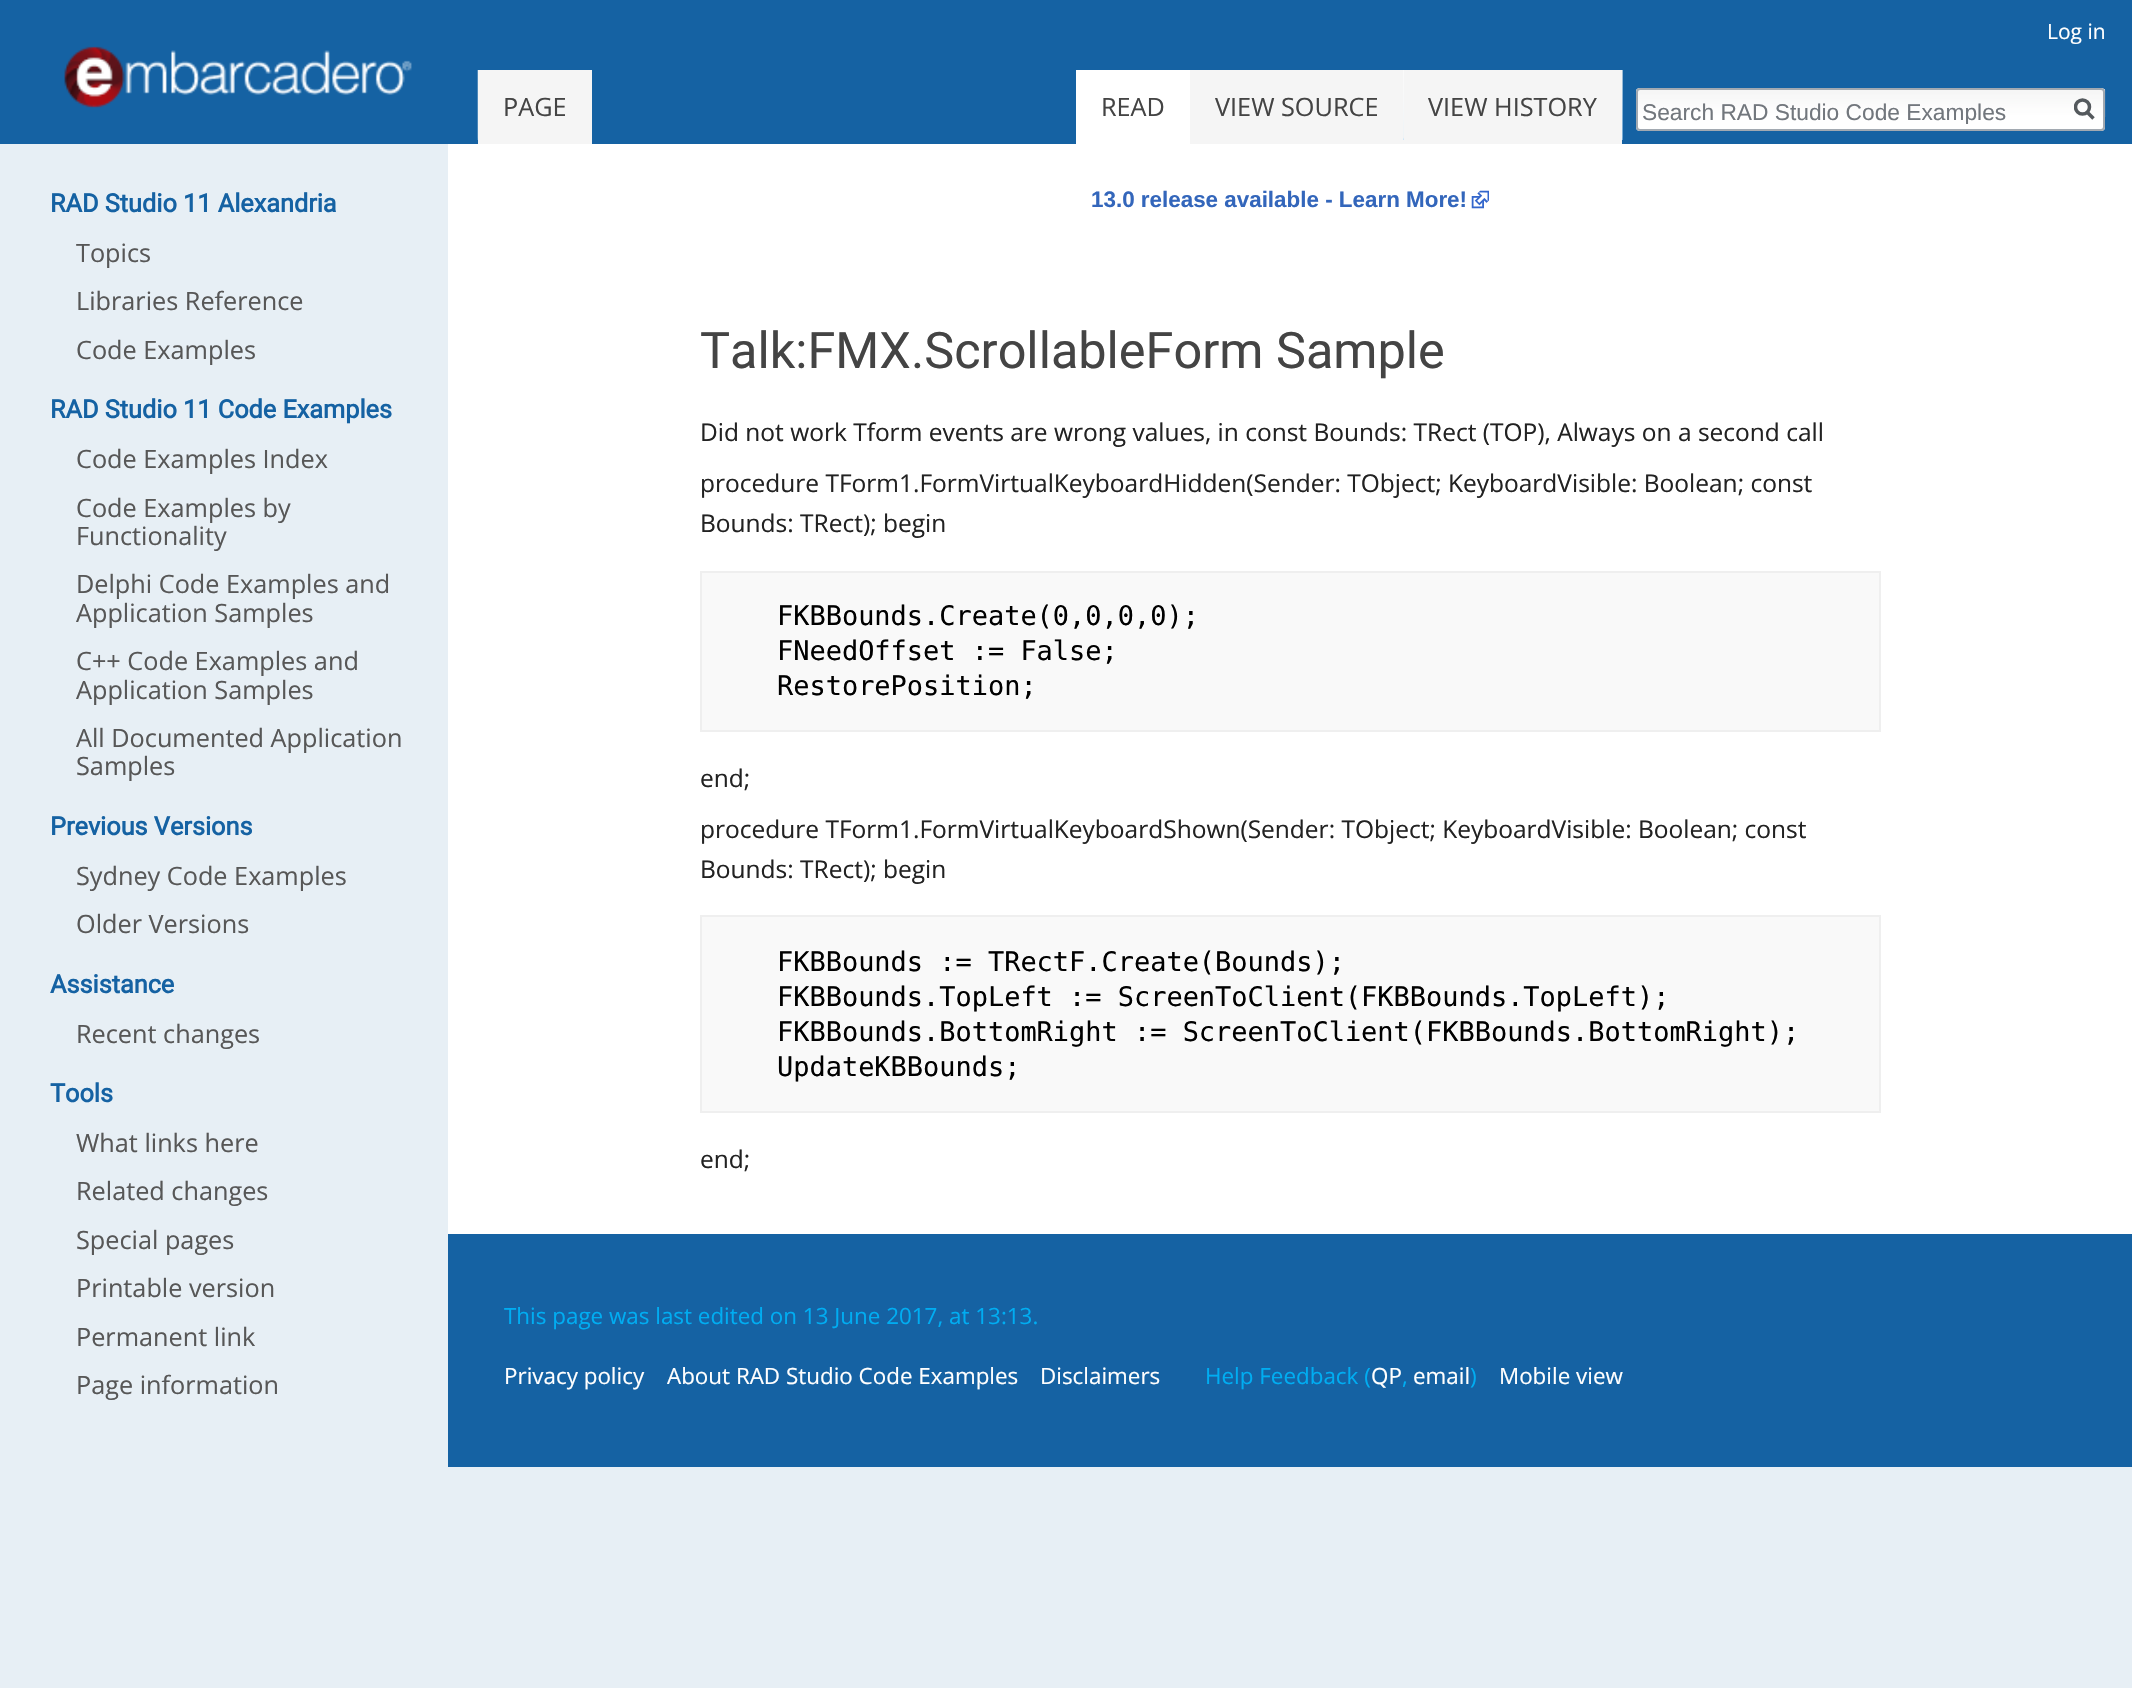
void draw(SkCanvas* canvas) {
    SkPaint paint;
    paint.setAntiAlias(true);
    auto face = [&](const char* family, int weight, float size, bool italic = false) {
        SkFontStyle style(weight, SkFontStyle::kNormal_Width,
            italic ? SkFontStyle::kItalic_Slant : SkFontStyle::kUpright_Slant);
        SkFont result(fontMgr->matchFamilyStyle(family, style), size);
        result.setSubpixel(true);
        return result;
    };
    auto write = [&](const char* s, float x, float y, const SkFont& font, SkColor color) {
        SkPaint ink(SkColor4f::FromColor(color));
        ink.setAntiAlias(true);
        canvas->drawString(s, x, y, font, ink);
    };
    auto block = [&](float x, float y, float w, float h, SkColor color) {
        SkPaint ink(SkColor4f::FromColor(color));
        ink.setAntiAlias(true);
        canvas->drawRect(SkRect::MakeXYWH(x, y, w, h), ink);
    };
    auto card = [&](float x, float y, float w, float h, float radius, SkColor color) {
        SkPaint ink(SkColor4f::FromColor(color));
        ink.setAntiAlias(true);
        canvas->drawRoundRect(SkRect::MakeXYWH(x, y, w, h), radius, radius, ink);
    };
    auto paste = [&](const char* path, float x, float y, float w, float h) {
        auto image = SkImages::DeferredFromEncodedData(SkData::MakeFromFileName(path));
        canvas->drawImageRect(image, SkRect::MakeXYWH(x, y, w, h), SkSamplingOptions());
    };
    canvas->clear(SkColorSetRGB(231, 239, 245));
    block(0, 0, 2132, 144, SkColorSetRGB(21, 98, 163));
    auto kFont1 = face("Open Sans", 400, 21);
    write("Log in", 2047, 39, kFont1, SK_ColorWHITE);
    paste("pic1.png", 477, 70, 1, 70);
    block(478, 70, 114, 74, SkColorSetRGB(245, 245, 245));
    auto kFont2 = face("Open Sans", 400, 25.25f);
    write("PAGE", 503, 116, kFont2, SkColorSetRGB(68, 68, 68));
    paste("pic2.png", 1622, 70, 1, 70);
    block(1076, 70, 114, 74, SK_ColorWHITE);
    write("READ", 1101, 116, kFont2, SkColorSetRGB(68, 68, 68));
    block(1190, 70, 214, 74, SkColorSetRGB(245, 245, 245));
    write("VIEW SOURCE", 1215, 116, kFont2, SkColorSetRGB(68, 68, 68));
    paste("pic3.png", 1403, 70, 220, 70);
    paste("pic4.png", 1622, 70, 1, 70);
    block(1404, 70, 218, 74, SkColorSetRGB(245, 245, 245));
    write("VIEW HISTORY", 1428, 116, kFont2, SkColorSetRGB(68, 68, 68));
    card(1636, 88, 469, 43, 4, SK_ColorWHITE);
    paste("pic5.png", 1636, 89, 470, 28);
    paint.setStyle(SkPaint::kStroke_Style);
    paint.setStrokeWidth(2);
    paint.setColor(SkColorSetRGB(162, 169, 177));
    canvas->drawRoundRect(SkRect::MakeXYWH(1637, 89, 467, 41), 3, 3, paint);
    canvas->save();
    canvas->clipRect(SkRect::MakeXYWH(1642, 98, 400, 26));
    auto kFont3 = face("Liberation Sans", 400, 22.75f);
    write("Search RAD Studio Code Examples", 1642, 120, kFont3, SkColorSetRGB(114, 119, 125));
    canvas->restore();
    paint.setStrokeWidth(3.5f);
    paint.setColor(SkColorSetRGB(84, 89, 93));
    canvas->drawPath(SkPathBuilder().moveTo(2093.5f, 118.5f).lineTo(2086.5f, 111.5f).detach(), paint);
    canvas->save();
    canvas->clipRect(SkRect::MakeXYWH(2074, 98, 21, 23));
    canvas->drawCircle(2082.5f, 107, 7, paint);
    canvas->restore();
    paste("pic6.png", 64, 46, 348, 62);
    auto kFont4 = face("Roboto", 700, 25.25f);
    write("RAD Studio 11 Alexandria", 50, 212, kFont4, SkColorSetRGB(21, 98, 163));
    write("Topics", 76, 262, kFont2, SkColorSetRGB(87, 87, 87));
    write("Libraries Reference", 76, 310, kFont2, SkColorSetRGB(87, 87, 87));
    write("Code Examples", 76, 359, kFont2, SkColorSetRGB(87, 87, 87));
    write("RAD Studio 11 Code Examples", 50, 418, kFont4, SkColorSetRGB(21, 98, 163));
    write("Code Examples Index", 76, 468, kFont2, SkColorSetRGB(87, 87, 87));
    write("Code Examples by", 76, 517, kFont2, SkColorSetRGB(87, 87, 87));
    write("Functionality", 76, 545, kFont2, SkColorSetRGB(87, 87, 87));
    write("Delphi Code Examples and", 76, 593, kFont2, SkColorSetRGB(87, 87, 87));
    write("Application Samples", 76, 622, kFont2, SkColorSetRGB(87, 87, 87));
    write("C++ Code Examples and", 76, 670, kFont2, SkColorSetRGB(87, 87, 87));
    write("Application Samples", 76, 699, kFont2, SkColorSetRGB(87, 87, 87));
    write("All Documented Application", 76, 747, kFont2, SkColorSetRGB(87, 87, 87));
    write("Samples", 76, 775, kFont2, SkColorSetRGB(87, 87, 87));
    write("Previous Versions", 50, 835, kFont4, SkColorSetRGB(21, 98, 163));
    write("Sydney Code Examples", 76, 885, kFont2, SkColorSetRGB(87, 87, 87));
    write("Older Versions", 76, 933, kFont2, SkColorSetRGB(87, 87, 87));
    write("Assistance", 50, 993, kFont4, SkColorSetRGB(21, 98, 163));
    write("Recent changes", 76, 1043, kFont2, SkColorSetRGB(87, 87, 87));
    write("Tools", 50, 1102, kFont4, SkColorSetRGB(21, 98, 163));
    write("What links here", 76, 1152, kFont2, SkColorSetRGB(87, 87, 87));
    write("Related changes", 76, 1200, kFont2, SkColorSetRGB(87, 87, 87));
    write("Special pages", 76, 1249, kFont2, SkColorSetRGB(87, 87, 87));
    write("Printable version", 76, 1297, kFont2, SkColorSetRGB(87, 87, 87));
    write("Permanent link", 76, 1346, kFont2, SkColorSetRGB(87, 87, 87));
    write("Page information", 76, 1394, kFont2, SkColorSetRGB(87, 87, 87));
    block(448, 144, 1684, 1090, SK_ColorWHITE);
    auto kFont5 = face("Liberation Sans", 700, 22.4f);
    write("13.0 release available - Learn More!", 1091, 207, kFont5, SkColorSetRGB(51, 102, 187));
    paste("pic7.png", 1471, 190, 18, 19);
    auto kFont6 = face("Roboto", 400, 50.4f);
    write("Talk:FMX.ScrollableForm Sample", 700, 368, kFont6, SkColorSetRGB(68, 68, 68));
    auto kFont7 = face("Open Sans", 400, 24.5f);
    write("Did not work Tform events are wrong values, in const Bounds: TRect (TOP), Always on a second call", 700, 441, kFont7, SkColorSetRGB(34, 34, 34));
    write("procedure TForm1.FormVirtualKeyboardHidden(Sender: TObject; KeyboardVisible: Boolean; const", 700, 492, kFont7, SkColorSetRGB(34, 34, 34));
    write("Bounds: TRect); begin", 700, 532, kFont7, SkColorSetRGB(34, 34, 34));
    paint.setStyle(SkPaint::kFill_Style);
    paint.setColor(SkColorSetRGB(249, 249, 249));
    canvas->drawRect(SkRect::MakeXYWH(701, 572, 1179, 159), paint);
    paint.setStyle(SkPaint::kStroke_Style);
    paint.setStrokeWidth(2);
    paint.setColor(SkColorSetRGB(239, 239, 239));
    canvas->drawRect(SkRect::MakeXYWH(701, 572, 1179, 159), paint);
    auto kFont8 = face("DejaVu Sans Mono", 400, 26.95f);
    write("FKBBounds.Create(0,0,0,0);", 777, 625, kFont8, SK_ColorBLACK);
    write("FNeedOffset := False;", 777, 660, kFont8, SK_ColorBLACK);
    write("RestorePosition;", 777, 695, kFont8, SK_ColorBLACK);
    write("end;", 700, 787, kFont7, SkColorSetRGB(34, 34, 34));
    write("procedure TForm1.FormVirtualKeyboardShown(Sender: TObject; KeyboardVisible: Boolean; const", 700, 838, kFont7, SkColorSetRGB(34, 34, 34));
    write("Bounds: TRect); begin", 700, 878, kFont7, SkColorSetRGB(34, 34, 34));
    paint.setStyle(SkPaint::kFill_Style);
    paint.setColor(SkColorSetRGB(249, 249, 249));
    canvas->drawRect(SkRect::MakeXYWH(701, 916, 1179, 196), paint);
    paint.setStyle(SkPaint::kStroke_Style);
    paint.setColor(SkColorSetRGB(239, 239, 239));
    canvas->drawRect(SkRect::MakeXYWH(701, 916, 1179, 196), paint);
    write("FKBBounds := TRectF.Create(Bounds);", 777, 971, kFont8, SK_ColorBLACK);
    write("FKBBounds.TopLeft := ScreenToClient(FKBBounds.TopLeft);", 777, 1006, kFont8, SK_ColorBLACK);
    write("FKBBounds.BottomRight := ScreenToClient(FKBBounds.BottomRight);", 777, 1041, kFont8, SK_ColorBLACK);
    write("UpdateKBBounds;", 777, 1076, kFont8, SK_ColorBLACK);
    write("end;", 700, 1168, kFont7, SkColorSetRGB(34, 34, 34));
    block(448, 1234, 1684, 233, SkColorSetRGB(21, 98, 163));
    auto kFont9 = face("Open Sans", 400, 22.4f);
    write("This page was last edited on 13 June 2017, at 13:13.", 504, 1324, kFont9, SkColorSetRGB(0, 173, 242));
    write("Privacy policy", 504, 1384, kFont9, SK_ColorWHITE);
    write("About RAD Studio Code Examples", 667, 1384, kFont9, SK_ColorWHITE);
    write("Disclaimers", 1040, 1384, kFont9, SK_ColorWHITE);
    write("Help Feedback (", 1205, 1384, kFont9, SkColorSetRGB(0, 173, 242));
    write("QP", 1371, 1384, kFont9, SK_ColorWHITE);
    write(",", 1402, 1384, kFont9, SkColorSetRGB(0, 173, 242));
    write("email", 1413, 1384, kFont9, SK_ColorWHITE);
    write(")", 1470, 1384, kFont9, SkColorSetRGB(0, 173, 242));
    write("Mobile view", 1499, 1384, kFont9, SK_ColorWHITE);
}
